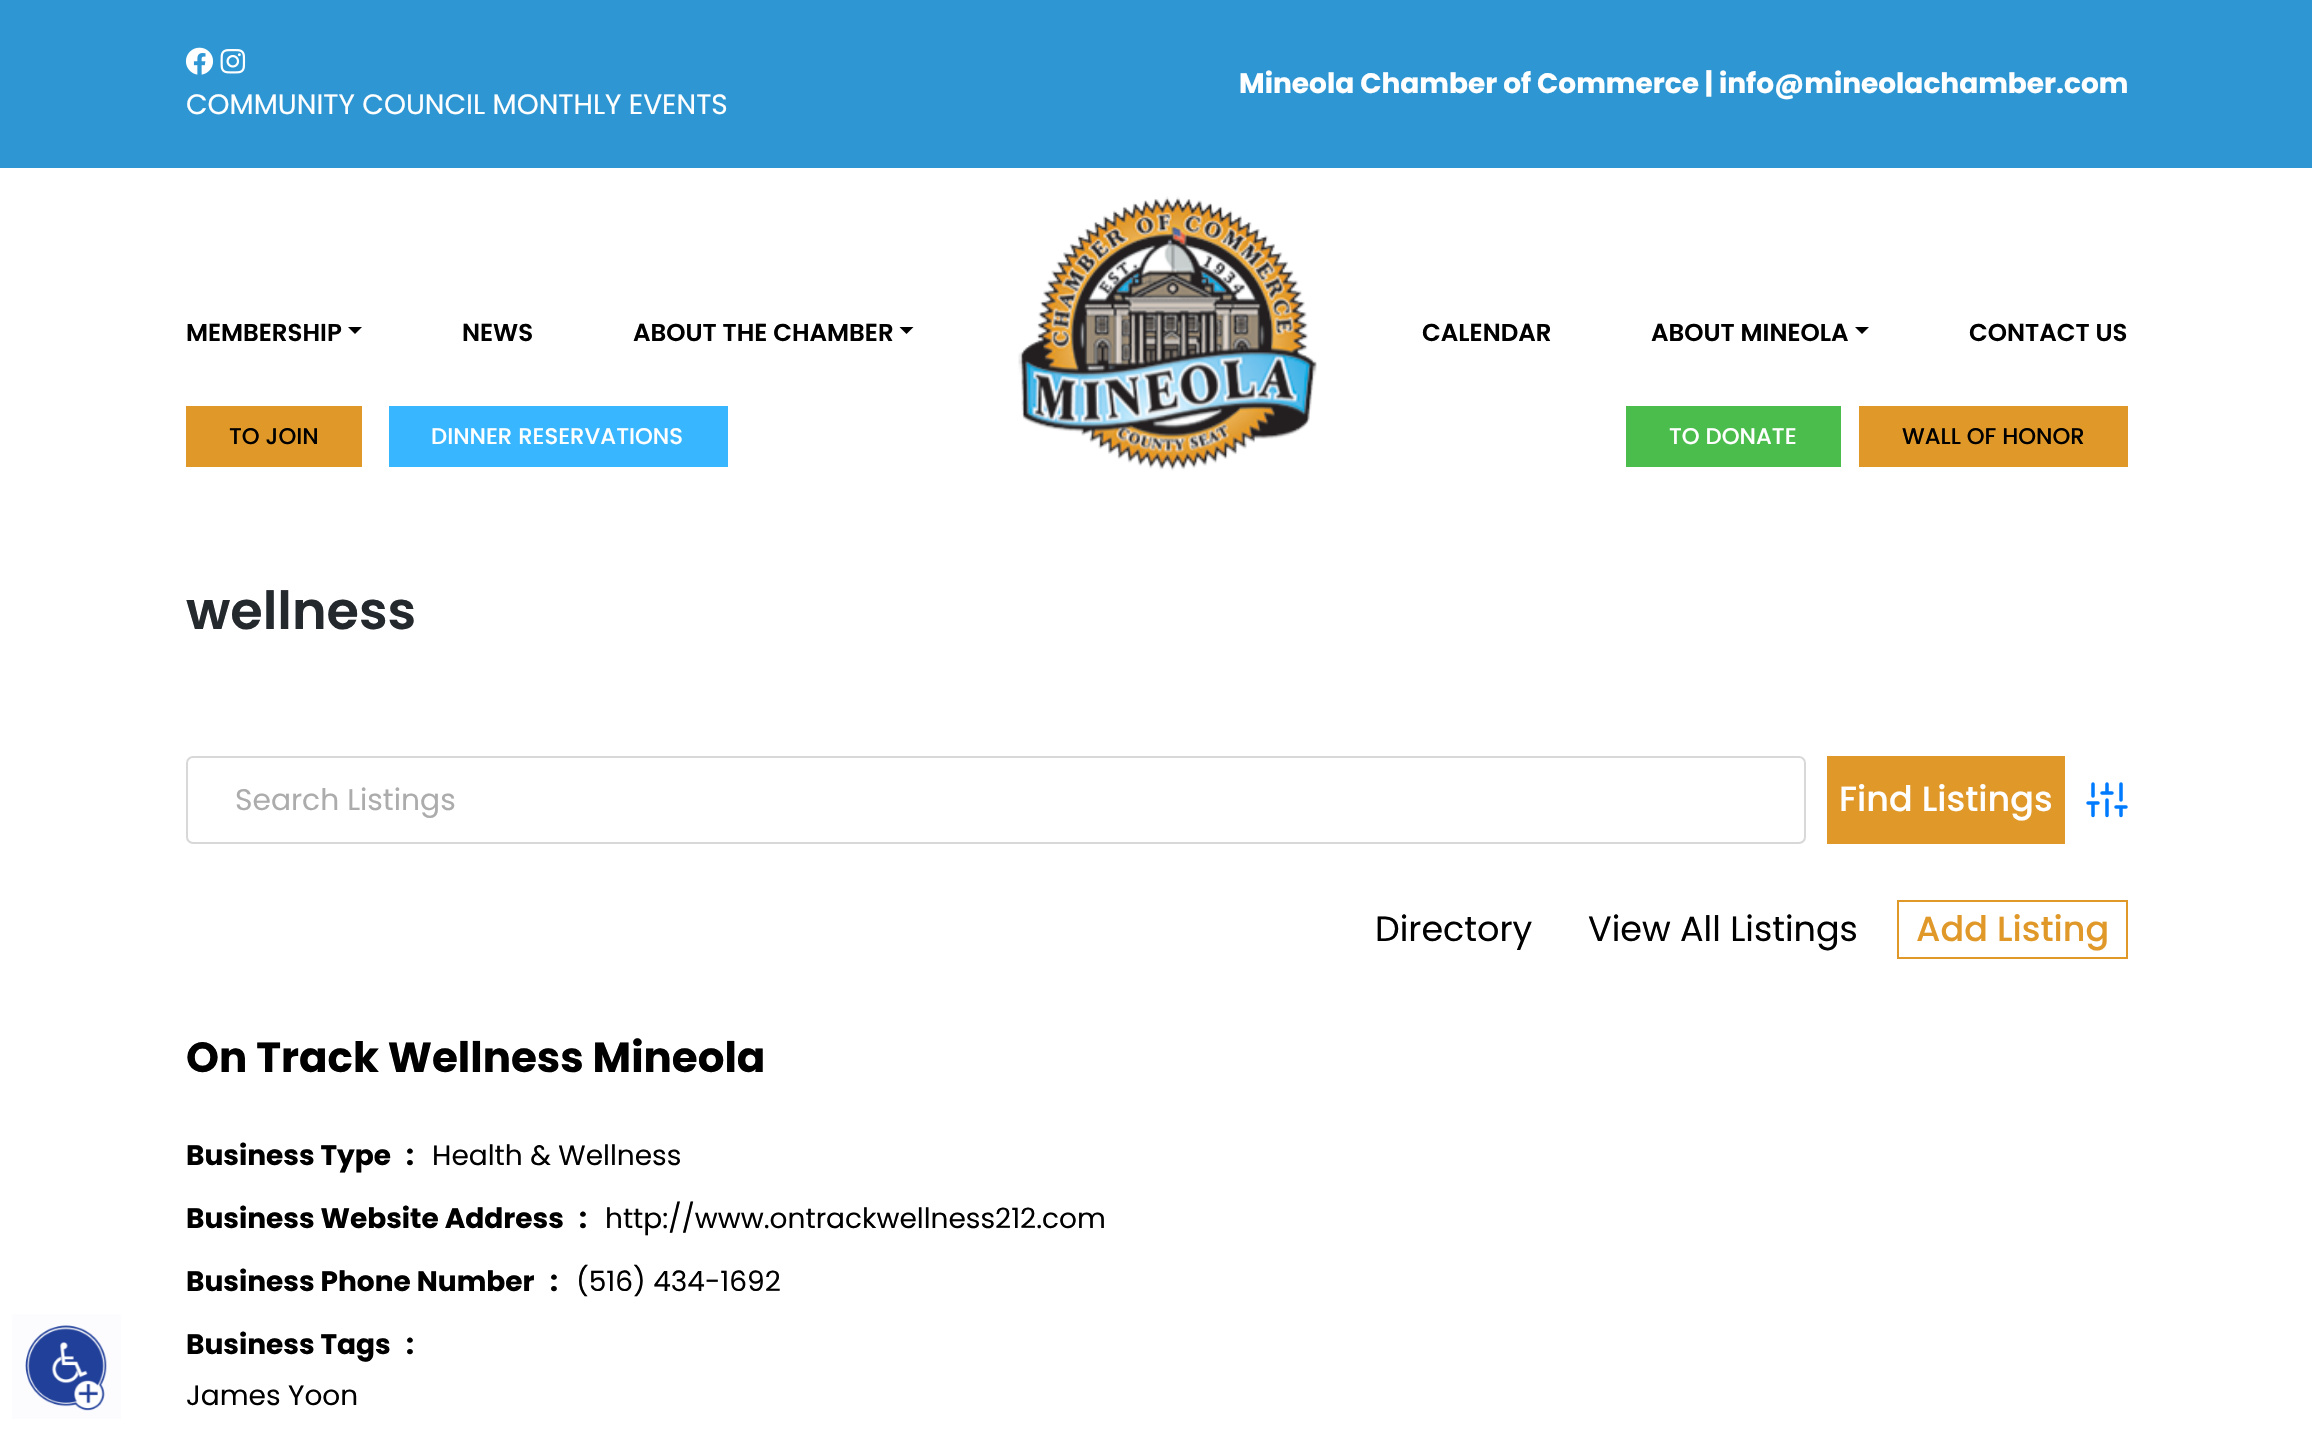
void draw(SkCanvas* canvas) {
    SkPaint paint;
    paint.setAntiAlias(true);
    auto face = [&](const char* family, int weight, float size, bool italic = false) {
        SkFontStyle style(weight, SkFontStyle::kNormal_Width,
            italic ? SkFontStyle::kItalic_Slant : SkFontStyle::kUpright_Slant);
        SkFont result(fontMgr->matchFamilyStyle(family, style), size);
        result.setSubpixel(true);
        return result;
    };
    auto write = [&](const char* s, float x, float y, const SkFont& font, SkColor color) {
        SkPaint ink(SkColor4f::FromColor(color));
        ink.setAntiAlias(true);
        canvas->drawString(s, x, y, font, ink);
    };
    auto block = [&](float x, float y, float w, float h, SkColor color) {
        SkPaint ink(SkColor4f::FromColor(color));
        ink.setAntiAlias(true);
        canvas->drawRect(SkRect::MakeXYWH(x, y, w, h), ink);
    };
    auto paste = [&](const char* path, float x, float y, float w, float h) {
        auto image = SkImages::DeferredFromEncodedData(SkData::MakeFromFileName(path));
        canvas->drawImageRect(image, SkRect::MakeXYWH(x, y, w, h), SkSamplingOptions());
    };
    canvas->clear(SK_ColorWHITE);
    block(12, 1314, 109, 105, SkColorSetRGB(252, 252, 255));
    paste("pic1.png", 25, 1325, 82, 86);
    block(0, 0, 2312, 168, SkColorSetRGB(46, 151, 211));
    auto kFont1 = face("Poppins", 700, 28);
    write("Mineola Chamber of Commerce | info@mineolachamber.com", 1239, 93, kFont1, SK_ColorWHITE);
    paste("pic2.png", 185, 47, 29, 28);
    paste("pic3.png", 220, 49, 26, 25);
    auto kFont2 = face("Poppins", 400, 28);
    write("COMMUNITY COUNCIL MONTHLY EVENTS", 186, 114, kFont2, SK_ColorWHITE);
    auto kFont3 = face("Poppins", 600, 24.5f);
    write("MEMBERSHIP", 186, 341, kFont3, SK_ColorBLACK);
    paint.setColor(SK_ColorBLACK);
    canvas->drawPath(SkPathBuilder().moveTo(348, 327).lineTo(362, 327).lineTo(355, 334).close().detach(), paint);
    write("NEWS", 462, 341, kFont3, SK_ColorBLACK);
    write("ABOUT THE CHAMBER", 633, 341, kFont3, SK_ColorBLACK);
    canvas->drawPath(SkPathBuilder().moveTo(899.5f, 327).lineTo(913.5f, 327).lineTo(906.5f, 334).close().detach(), paint);
    paste("pic4.png", 1018, 196, 299, 275);
    write("CALENDAR", 1422, 341, kFont3, SK_ColorBLACK);
    write("ABOUT MINEOLA", 1651, 341, kFont3, SK_ColorBLACK);
    canvas->drawPath(SkPathBuilder().moveTo(1855, 327).lineTo(1869, 327).lineTo(1862, 334).close().detach(), paint);
    write("CONTACT US", 1969, 341, kFont3, SK_ColorBLACK);
    block(186, 406, 176, 61, SkColorSetRGB(224, 152, 41));
    auto kFont4 = face("Poppins", 500, 22.75f);
    write("TO JOIN", 229, 444, kFont4, SK_ColorBLACK);
    block(389, 406, 339, 61, SkColorSetRGB(56, 182, 255));
    write("DINNER RESERVATIONS", 431, 444, kFont4, SK_ColorWHITE);
    block(1626, 406, 215, 61, SkColorSetRGB(74, 189, 76));
    write("TO DONATE", 1669, 444, kFont4, SK_ColorWHITE);
    block(1859, 406, 269, 61, SkColorSetRGB(224, 152, 40));
    write("WALL OF HONOR", 1902, 444, kFont4, SK_ColorBLACK);
    auto kFont5 = face("Poppins", 600, 52.5f);
    write("wellness", 186, 629, kFont5, SkColorSetRGB(36, 41, 46));
    paint.setStyle(SkPaint::kStroke_Style);
    paint.setStrokeWidth(2);
    paint.setColor(SkColorSetRGB(216, 216, 216));
    canvas->drawRoundRect(SkRect::MakeXYWH(187, 757, 1618, 86), 6, 6, paint);
    auto kFont6 = face("Poppins", 400, 29.75f);
    write("Search Listings", 235, 810, kFont6, SkColorSetRGB(172, 172, 172));
    block(1827, 756, 238, 88, SkColorSetRGB(224, 152, 41));
    auto kFont7 = face("Poppins", 500, 35);
    write("Find Listings", 1839, 811, kFont7, SK_ColorWHITE);
    paint.setStrokeWidth(3.5f);
    paint.setStrokeCap(SkPaint::kRound_Cap);
    paint.setStrokeJoin(SkPaint::kRound_Join);
    paint.setColor(SkColorSetRGB(0, 123, 255));
    canvas->drawPath(SkPathBuilder().moveTo(2093, 815.5f).lineTo(2093, 803).moveTo(2093, 796).lineTo(2093, 784).moveTo(2107, 815.5f).lineTo(2107, 800).moveTo(2107, 793).lineTo(2107, 784).moveTo(2121, 815.5f).lineTo(2121, 807).moveTo(2121, 800).lineTo(2121, 784).moveTo(2088, 803).lineTo(2098, 803).moveTo(2102, 793).lineTo(2112, 793).moveTo(2116, 807).lineTo(2126, 807).detach(), paint);
    auto kFont8 = face("Poppins", 400, 35);
    write("Directory", 1375, 941, kFont8, SK_ColorBLACK);
    write("View All Listings", 1588, 941, kFont8, SK_ColorBLACK);
    paint.setStrokeWidth(2);
    paint.setStrokeCap(SkPaint::kButt_Cap);
    paint.setStrokeJoin(SkPaint::kMiter_Join);
    paint.setColor(SkColorSetRGB(224, 152, 41));
    canvas->drawRect(SkRect::MakeXYWH(1898, 901, 229, 57), paint);
    write("Add Listing", 1916, 941, kFont7, SkColorSetRGB(224, 152, 41));
    auto kFont9 = face("Poppins", 700, 42);
    write("On Track Wellness Mineola", 186, 1072, kFont9, SK_ColorBLACK);
    write("Business Type", 186, 1165, kFont1, SK_ColorBLACK);
    write(":", 406, 1165, kFont1, SK_ColorBLACK);
    write("Health & Wellness", 432, 1165, kFont2, SK_ColorBLACK);
    write("Business Website Address", 186, 1228, kFont1, SK_ColorBLACK);
    write(":", 579, 1228, kFont1, SK_ColorBLACK);
    write("http://www.ontrackwellness212.com", 605, 1228, kFont2, SK_ColorBLACK);
    write("Business Phone Number", 186, 1291, kFont1, SK_ColorBLACK);
    write(":", 550, 1291, kFont1, SK_ColorBLACK);
    write("(516) 434-1692", 576, 1291, kFont2, SK_ColorBLACK);
    write("Business Tags", 186, 1354, kFont1, SK_ColorBLACK);
    write(":", 406, 1354, kFont1, SK_ColorBLACK);
    write("James Yoon", 186, 1405, kFont2, SK_ColorBLACK);
}
